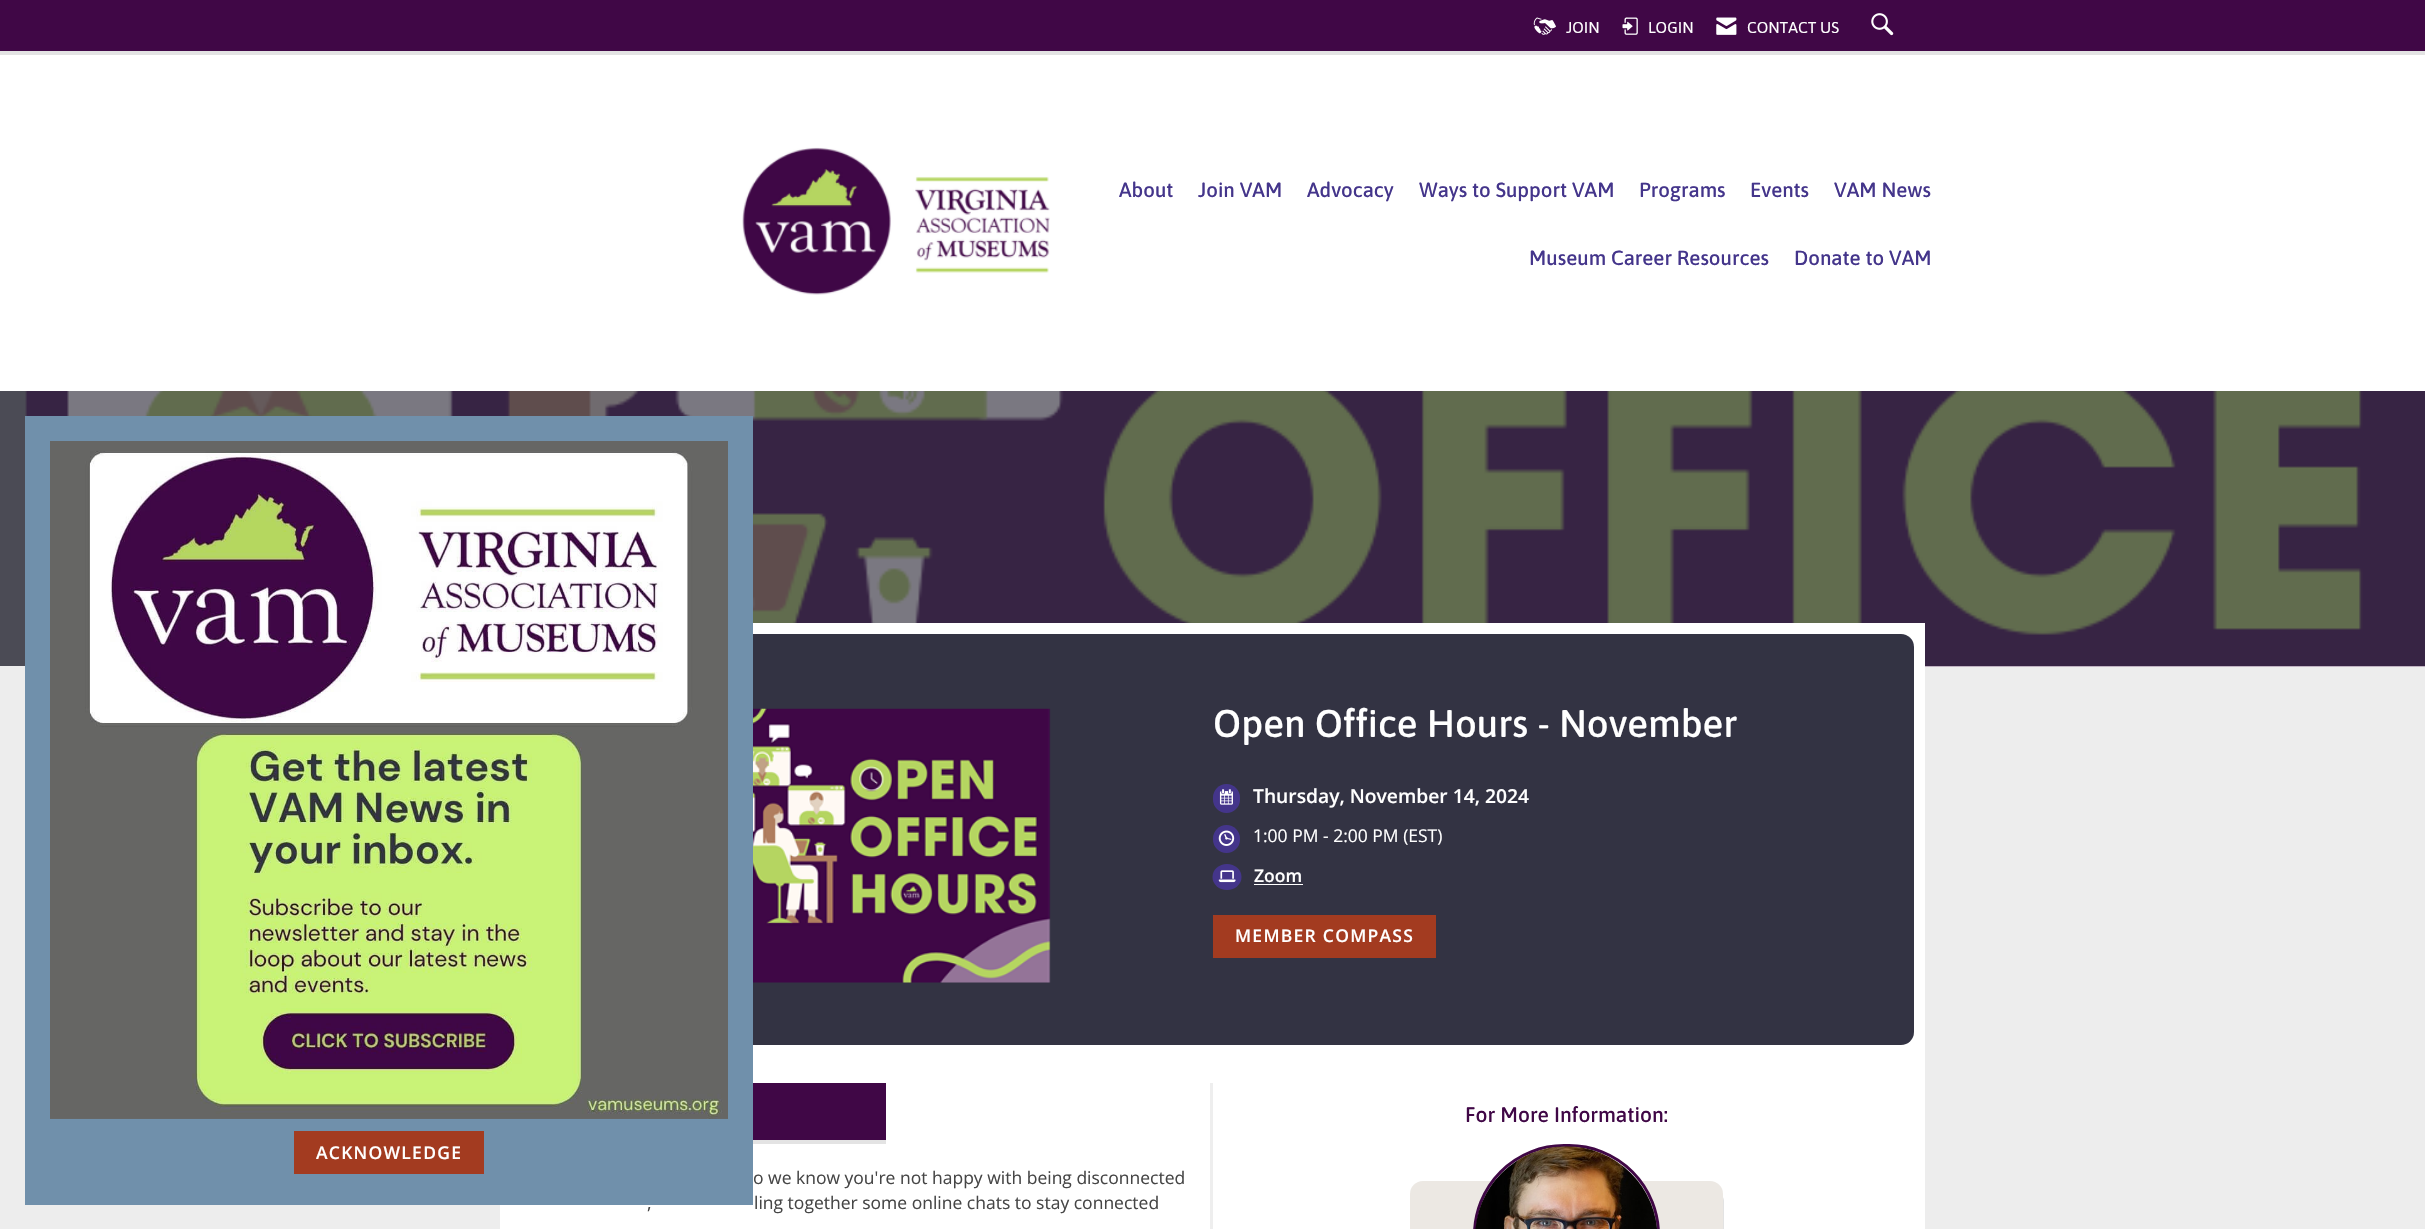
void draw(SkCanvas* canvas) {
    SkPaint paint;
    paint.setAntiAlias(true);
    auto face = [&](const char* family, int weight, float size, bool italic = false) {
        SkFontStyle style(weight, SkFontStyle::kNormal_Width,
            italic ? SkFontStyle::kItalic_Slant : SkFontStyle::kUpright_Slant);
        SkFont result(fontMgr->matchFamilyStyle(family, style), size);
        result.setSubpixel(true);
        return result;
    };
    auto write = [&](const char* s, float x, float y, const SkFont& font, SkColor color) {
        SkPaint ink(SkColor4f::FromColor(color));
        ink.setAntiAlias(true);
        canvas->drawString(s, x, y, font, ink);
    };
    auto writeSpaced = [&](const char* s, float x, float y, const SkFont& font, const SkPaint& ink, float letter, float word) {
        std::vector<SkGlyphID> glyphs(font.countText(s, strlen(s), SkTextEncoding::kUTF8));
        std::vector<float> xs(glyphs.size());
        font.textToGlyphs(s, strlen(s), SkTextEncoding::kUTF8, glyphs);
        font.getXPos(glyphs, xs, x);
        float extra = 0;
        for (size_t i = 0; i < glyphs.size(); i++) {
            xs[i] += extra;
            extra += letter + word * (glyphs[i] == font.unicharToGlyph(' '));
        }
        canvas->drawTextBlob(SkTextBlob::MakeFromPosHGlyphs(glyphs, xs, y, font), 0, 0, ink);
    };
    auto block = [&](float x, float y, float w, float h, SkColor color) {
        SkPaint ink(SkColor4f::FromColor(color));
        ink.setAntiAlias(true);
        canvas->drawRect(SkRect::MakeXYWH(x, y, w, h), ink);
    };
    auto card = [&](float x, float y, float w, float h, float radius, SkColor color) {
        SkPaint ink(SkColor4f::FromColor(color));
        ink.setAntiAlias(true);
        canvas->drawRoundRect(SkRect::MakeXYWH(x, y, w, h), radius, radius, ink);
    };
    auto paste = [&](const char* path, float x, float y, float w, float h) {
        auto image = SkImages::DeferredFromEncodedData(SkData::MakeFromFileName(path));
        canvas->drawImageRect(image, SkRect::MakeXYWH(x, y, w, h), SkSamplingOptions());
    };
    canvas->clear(SkColorSetRGB(237, 237, 237));
    block(0, 55, 2425, 336, SK_ColorWHITE);
    block(0, 51, 2425, 4, SkColorSetRGB(227, 227, 227));
    block(0, 0, 2425, 51, SkColorSetRGB(64, 7, 70));
    paste("pic1.png", 1533, 17, 23, 18);
    auto kFont1 = face("Asap", 400, 15.75f);
    write("JOIN", 1566, 33, kFont1, SK_ColorWHITE);
    paste("pic2.png", 1622, 17, 16, 18);
    write("LOGIN", 1648, 33, kFont1, SK_ColorWHITE);
    paste("pic3.png", 1716, 17, 21, 18);
    write("CONTACT US", 1747, 33, kFont1, SK_ColorWHITE);
    paste("pic4.png", 1871, 13, 23, 23);
    paste("pic5.png", 742, 147, 308, 148);
    auto kFont2 = face("Asap", 500, 20.5f);
    write("About", 1119, 197, kFont2, SkColorSetRGB(68, 53, 139));
    write("Join VAM", 1198, 197, kFont2, SkColorSetRGB(68, 53, 139));
    write("Advocacy", 1307, 197, kFont2, SkColorSetRGB(68, 53, 139));
    write("Ways to Support VAM", 1419, 197, kFont2, SkColorSetRGB(68, 53, 139));
    write("Programs", 1639, 197, kFont2, SkColorSetRGB(68, 53, 139));
    write("Events", 1750, 197, kFont2, SkColorSetRGB(68, 53, 139));
    write("VAM News", 1834, 197, kFont2, SkColorSetRGB(68, 53, 139));
    write("Museum Career Resources", 1529, 265, kFont2, SkColorSetRGB(68, 53, 139));
    write("Donate to VAM", 1794, 265, kFont2, SkColorSetRGB(68, 53, 139));
    block(0, 391, 27, 275, SkColorSetRGB(75, 75, 85));
    paste("pic7.png", 25, 391, 2400, 276);
    block(500, 623, 1425, 606, SK_ColorWHITE);
    card(511, 634, 1403, 411, 13, SkColorSetRGB(51, 51, 67));
    paint.setColor(SkColorSetARGB(28, 0, 0, 0));
    canvas->drawPath(SkPathBuilder().moveTo(486, 1086).lineTo(486, 1144).lineTo(886, 1144).lineTo(886, 1140).lineTo(486, 1140).close().detach(), paint);
    block(25, 416, 728, 789, SkColorSetRGB(112, 144, 171));
    paste("pic6.png", 50, 441, 678, 678);
    block(294, 1131, 190, 43, SkColorSetRGB(163, 59, 32));
    auto kFont3 = face("Open Sans", 600, 17.5f);
    paint.setColor(SK_ColorWHITE);
    writeSpaced("ACKNOWLEDGE", 316, 1159, kFont3, paint, 1.25f, 0);
    paste("pic8.png", 753, 708, 298, 275);
    auto kFont4 = face("Asap", 500, 38.5f);
    write("Open Office Hours - November", 1213, 737, kFont4, SK_ColorWHITE);
    card(1213, 784, 27, 29, 13.5f, SkColorSetRGB(68, 53, 139));
    paste("pic9.png", 1219, 789, 14, 16);
    auto kFont5 = face("Open Sans", 600, 19.25f);
    write("Thursday, November 14, 2024", 1253, 803, kFont5, SK_ColorWHITE);
    card(1213, 825, 27, 28, 13.5f, SkColorSetRGB(68, 53, 139));
    paste("pic10.png", 1218, 830, 17, 16);
    auto kFont6 = face("Open Sans", 400, 17.5f);
    write("1:00 PM - 2:00 PM (EST)", 1253, 842, kFont6, SK_ColorWHITE);
    paint.setColor(SkColorSetRGB(68, 53, 139));
    canvas->drawOval(SkRect::MakeXYWH(1212.5f, 864, 29, 26), paint);
    paste("pic11.png", 1218, 870, 18, 13);
    write("Zoom", 1254, 882, kFont3, SK_ColorWHITE);
    block(1254, 884, 49, 1, SK_ColorWHITE);
    block(1213, 915, 223, 43, SkColorSetRGB(163, 59, 32));
    paint.setColor(SK_ColorWHITE);
    writeSpaced("MEMBER COMPASS", 1235, 942, kFont3, paint, 1.25f, 0);
    auto kFont7 = face("Asap", 500, 21);
    write("For More Information:", 1465, 1122, kFont7, SkColorSetRGB(64, 7, 70));
    paint.setColor(SkColorSetRGB(227, 227, 227));
    canvas->drawPath(SkPathBuilder().moveTo(1411, 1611).lineTo(1411, 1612).cubicTo(1411, 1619, 1417, 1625, 1424, 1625).lineTo(1711, 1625).cubicTo(1718, 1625, 1724, 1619, 1724, 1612).lineTo(1724, 1201).cubicTo(1724, 1199, 1723, 1197, 1722, 1195).lineTo(1722, 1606).cubicTo(1722, 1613, 1717, 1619, 1710, 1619).lineTo(1422, 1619).cubicTo(1417, 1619, 1413, 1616, 1411, 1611).close().detach(), paint);
    card(1410, 1181, 313, 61, 13, SkColorSetRGB(236, 232, 227));
    paint.setStyle(SkPaint::kStroke_Style);
    paint.setStrokeWidth(3);
    paint.setColor(SkColorSetRGB(64, 7, 70));
    canvas->drawRoundRect(SkRect::MakeXYWH(1474.5f, 1145.5f, 184, 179), 92, 92, paint);
    paste("pic12.png", 1475, 1146, 182, 83);
    block(1210, 1083, 3, 146, SkColorSetRGB(238, 238, 238));
    block(753, 1083, 133, 57, SkColorSetRGB(64, 7, 70));
    write("o we know you're not happy with being disconnected", 753, 1184, kFont6, SkColorSetRGB(70, 70, 70));
    write(",", 647, 1209, kFont6, SkColorSetRGB(70, 70, 70));
    write("ling together some online chats to stay connected", 754, 1209, kFont6, SkColorSetRGB(70, 70, 70));
}
